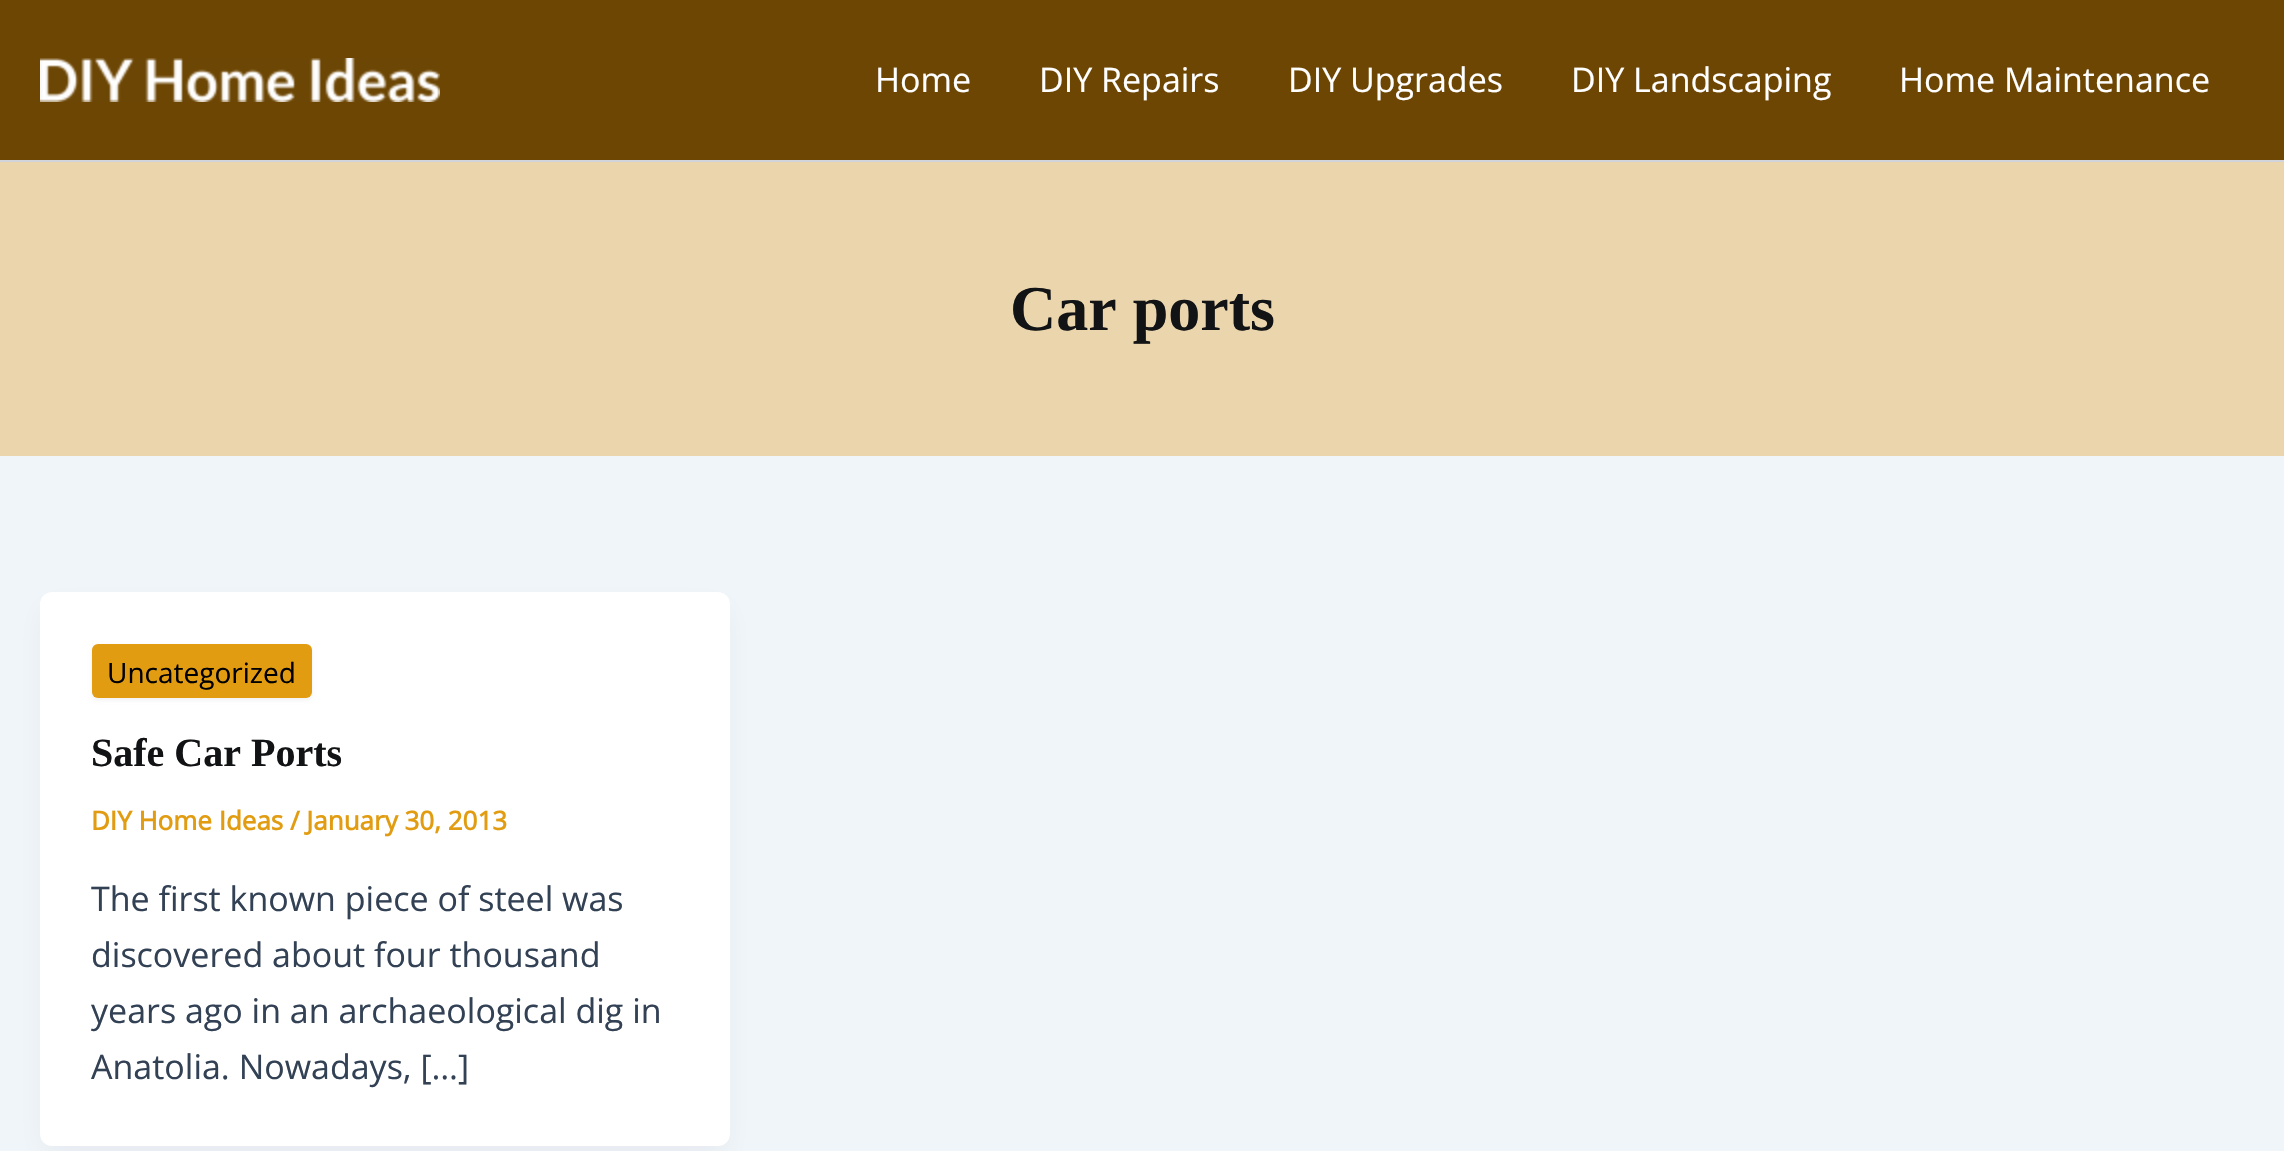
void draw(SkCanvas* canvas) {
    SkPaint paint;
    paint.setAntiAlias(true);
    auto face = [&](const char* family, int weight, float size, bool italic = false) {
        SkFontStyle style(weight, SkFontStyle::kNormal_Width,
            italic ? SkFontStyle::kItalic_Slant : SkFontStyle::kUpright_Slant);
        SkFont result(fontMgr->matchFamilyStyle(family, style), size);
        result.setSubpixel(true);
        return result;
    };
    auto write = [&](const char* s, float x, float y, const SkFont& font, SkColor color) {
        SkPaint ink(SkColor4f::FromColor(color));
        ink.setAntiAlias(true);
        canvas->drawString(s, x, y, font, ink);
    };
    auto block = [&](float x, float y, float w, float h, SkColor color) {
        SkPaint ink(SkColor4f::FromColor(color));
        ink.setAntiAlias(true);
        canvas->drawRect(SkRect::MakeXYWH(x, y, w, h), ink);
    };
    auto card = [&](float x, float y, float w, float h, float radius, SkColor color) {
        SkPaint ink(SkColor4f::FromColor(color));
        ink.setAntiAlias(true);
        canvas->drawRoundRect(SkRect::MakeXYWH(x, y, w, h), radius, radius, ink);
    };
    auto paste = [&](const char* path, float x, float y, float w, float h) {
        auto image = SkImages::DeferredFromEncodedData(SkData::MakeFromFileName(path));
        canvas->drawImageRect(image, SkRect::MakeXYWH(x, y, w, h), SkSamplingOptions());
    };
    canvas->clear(SkColorSetRGB(240, 245, 250));
    block(0, 0, 2284, 160, SkColorSetRGB(109, 70, 4));
    block(0, 160, 2284, 2, SkColorSetRGB(209, 213, 219));
    paste("pic1.png", 40, 58, 400, 44);
    auto kFont1 = face("Open Sans", 400, 34);
    write("Home", 875, 92, kFont1, SK_ColorWHITE);
    write("DIY Repairs", 1039, 92, kFont1, SK_ColorWHITE);
    write("DIY Upgrades", 1288, 92, kFont1, SK_ColorWHITE);
    write("DIY Landscaping", 1571, 92, kFont1, SK_ColorWHITE);
    write("Home Maintenance", 1899, 92, kFont1, SK_ColorWHITE);
    block(0, 162, 2284, 294, SkColorSetRGB(235, 213, 173));
    auto kFont2 = face("Liberation Serif", 700, 64);
    write("Car ports", 1010, 330, kFont2, SkColorSetRGB(18, 19, 21));
    paint.setColor(SkColorSetARGB(13, 16, 24, 40));
    paint.setMaskFilter(SkMaskFilter::MakeBlur(kNormal_SkBlurStyle, 15));
    canvas->drawRoundRect(SkRect::MakeXYWH(44, 608, 682, 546), 8, 8, paint);
    paint.setMaskFilter(nullptr);
    card(40, 592, 690, 554, 12, SK_ColorWHITE);
    paint.setColor(SkColorSetARGB(13, 0, 0, 0));
    paint.setMaskFilter(SkMaskFilter::MakeBlur(kNormal_SkBlurStyle, 2));
    canvas->drawRoundRect(SkRect::MakeXYWH(92, 646, 220, 54), 6, 6, paint);
    paint.setMaskFilter(nullptr);
    card(92, 644, 220, 54, 6, SkColorSetRGB(225, 156, 17));
    auto kFont3 = face("Open Sans", 400, 28);
    write("Uncategorized", 107, 683, kFont3, SK_ColorBLACK);
    auto kFont4 = face("Liberation Serif", 700, 40);
    write("Safe Car Ports", 91, 766, kFont4, SkColorSetRGB(18, 19, 21));
    auto kFont5 = face("Open Sans", 700, 26);
    write("DIY Home Ideas / January 30, 2013", 91, 830, kFont5, SkColorSetRGB(225, 156, 17));
    write("The first known piece of steel was", 91, 911, kFont1, SkColorSetRGB(51, 65, 85));
    write("discovered about four thousand", 91, 967, kFont1, SkColorSetRGB(51, 65, 85));
    write("years ago in an archaeological dig in", 91, 1023, kFont1, SkColorSetRGB(51, 65, 85));
    write("Anatolia. Nowadays, […]", 91, 1079, kFont1, SkColorSetRGB(51, 65, 85));
}
